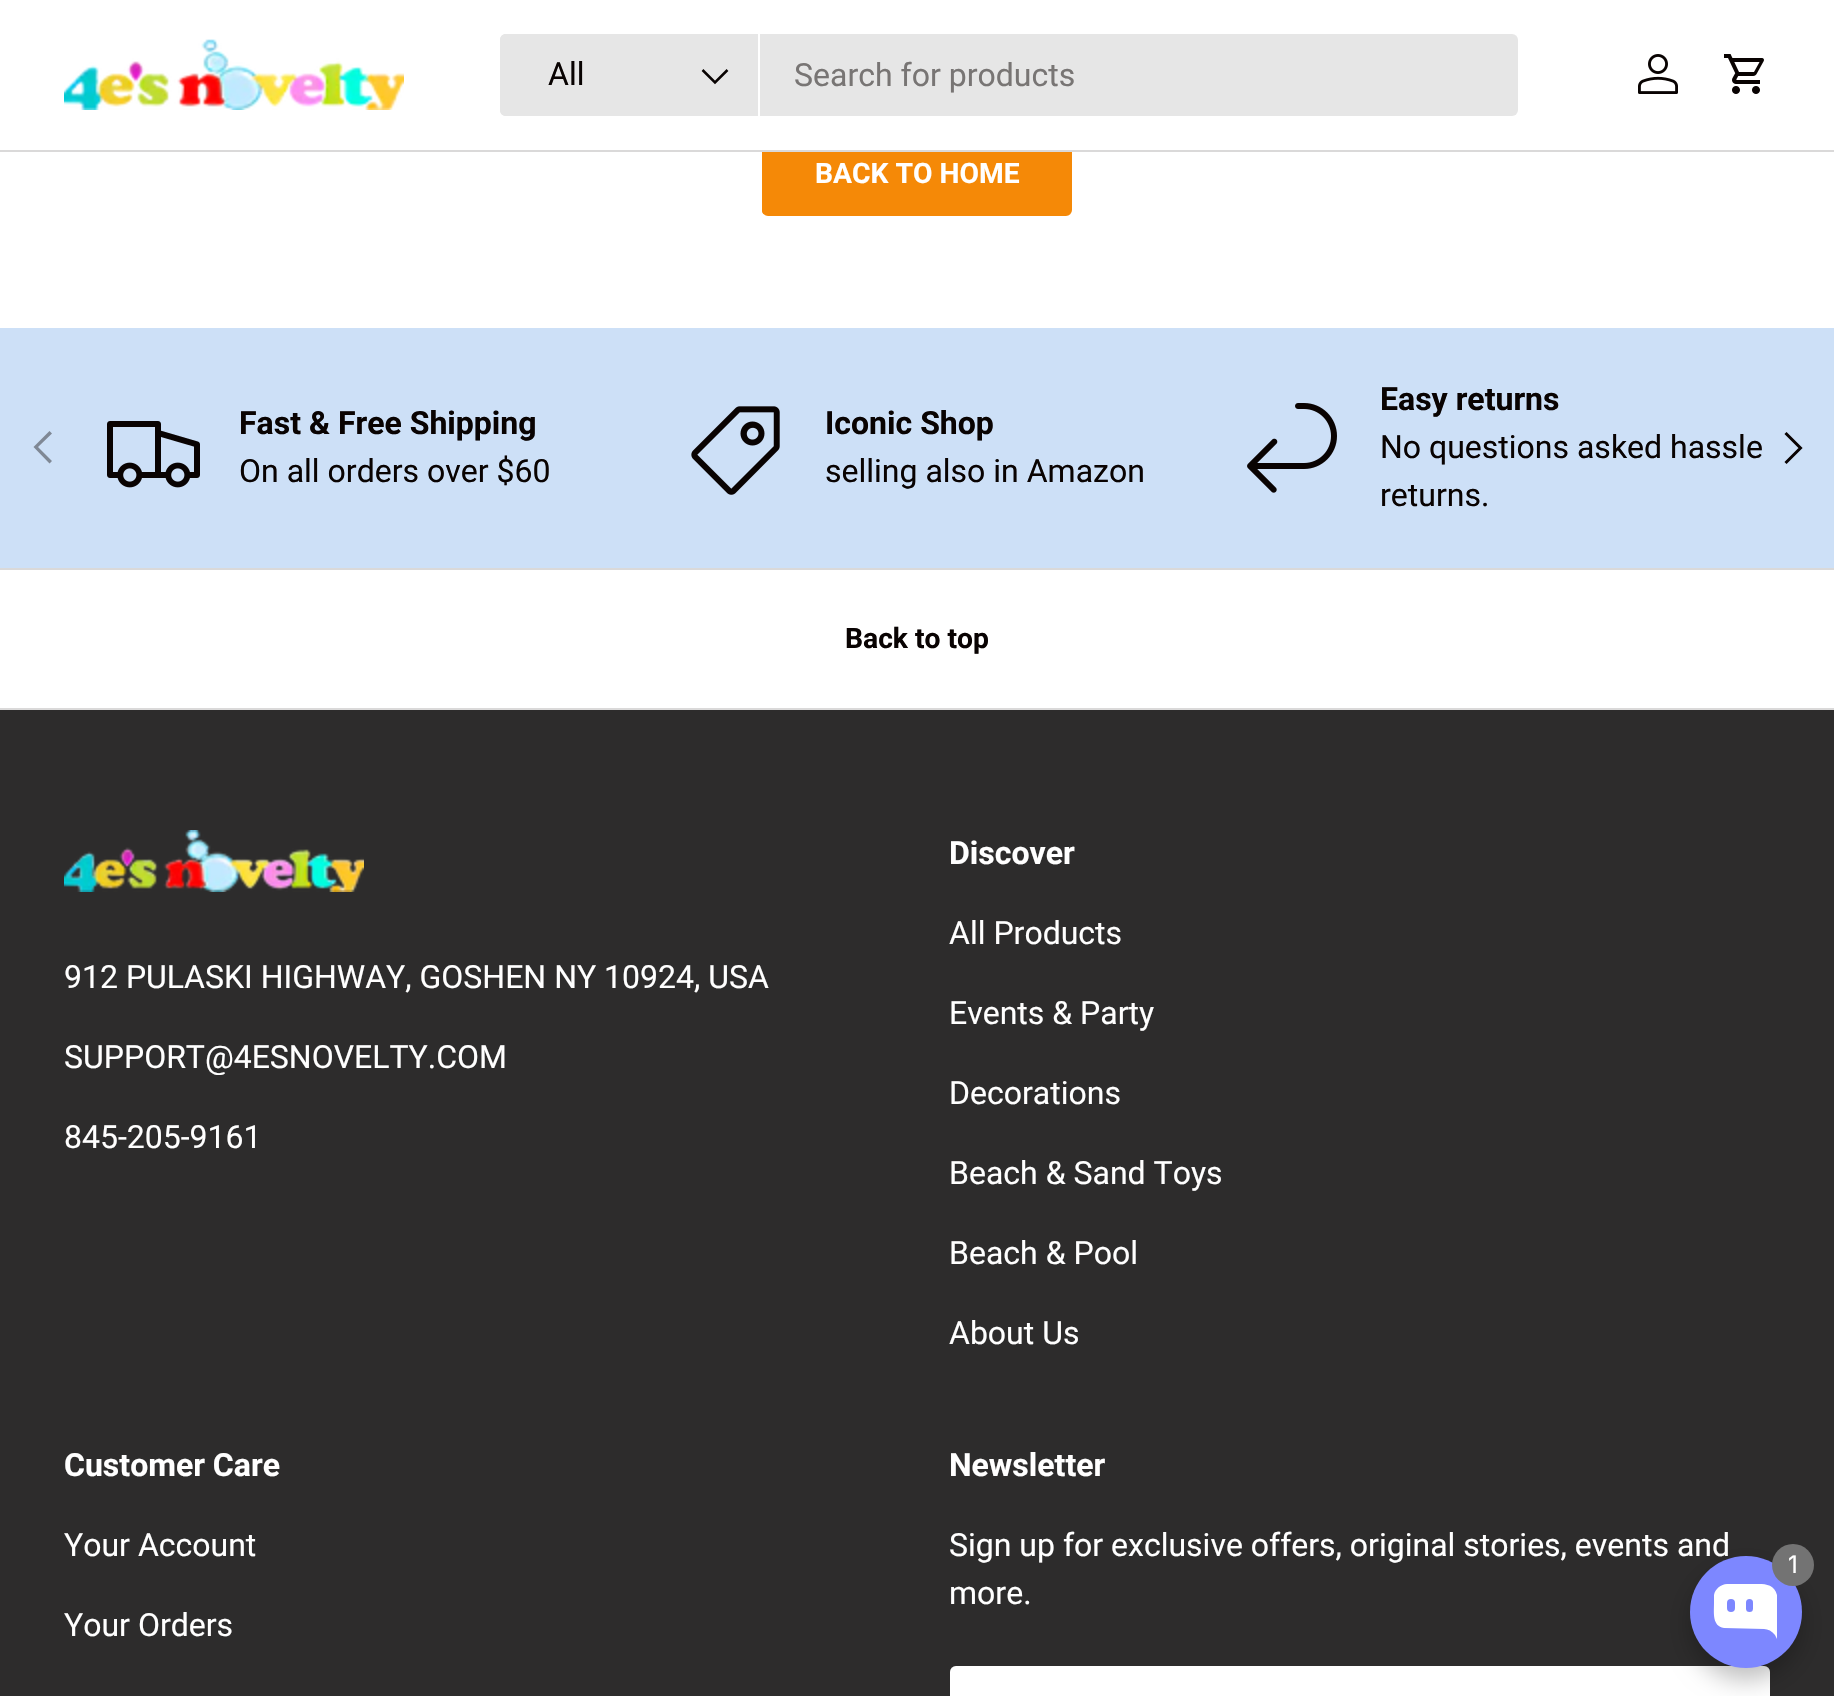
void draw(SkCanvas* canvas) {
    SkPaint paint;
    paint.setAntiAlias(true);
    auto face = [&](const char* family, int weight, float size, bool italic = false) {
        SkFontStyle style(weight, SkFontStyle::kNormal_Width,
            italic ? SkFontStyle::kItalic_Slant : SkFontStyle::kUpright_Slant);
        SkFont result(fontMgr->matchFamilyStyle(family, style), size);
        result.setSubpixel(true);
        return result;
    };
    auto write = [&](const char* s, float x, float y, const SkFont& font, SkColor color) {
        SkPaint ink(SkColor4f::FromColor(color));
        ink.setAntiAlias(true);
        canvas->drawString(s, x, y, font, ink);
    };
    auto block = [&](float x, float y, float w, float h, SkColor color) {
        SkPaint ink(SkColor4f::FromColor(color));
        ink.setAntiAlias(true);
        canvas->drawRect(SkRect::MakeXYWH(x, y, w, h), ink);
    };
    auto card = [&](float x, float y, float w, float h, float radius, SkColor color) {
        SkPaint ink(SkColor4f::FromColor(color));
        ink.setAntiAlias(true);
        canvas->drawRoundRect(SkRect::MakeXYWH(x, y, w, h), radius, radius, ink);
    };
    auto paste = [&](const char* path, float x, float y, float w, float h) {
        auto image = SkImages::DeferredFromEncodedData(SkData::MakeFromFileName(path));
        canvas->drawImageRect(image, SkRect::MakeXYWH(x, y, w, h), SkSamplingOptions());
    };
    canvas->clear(SK_ColorWHITE);
    canvas->save();
    canvas->clipPath(SkPathBuilder().moveTo(768, 130).lineTo(1066, 130).cubicTo(1069.5f, 130, 1072, 132.5f, 1072, 136).lineTo(1072, 210).cubicTo(1072, 213.5f, 1069.5f, 216, 1066, 216).lineTo(768, 216).cubicTo(764.5f, 216, 762, 213.5f, 762, 210).lineTo(762, 136).cubicTo(762, 132.5f, 764.5f, 130, 768, 130).close().detach(), true);
    {
        const SkColor colors[] = {SkColorSetRGB(248, 162, 59), SkColorSetRGB(245, 137, 7), SkColorSetRGB(245, 137, 7)};
        const float stops[] = {0.6f, 0.6f, 1};
        const SkPoint ends[] = {{169, 63}, {1053, 283}};
        paint.setShader(SkGradientShader::MakeLinear(ends, colors, stops, 3, SkTileMode::kClamp));
        paint.setAlpha(255);
    }
    canvas->drawRect(SkRect::MakeXYWH(762, 152, 308, 62), paint);
    canvas->restore();
    paint.setStyle(SkPaint::kStroke_Style);
    paint.setStrokeWidth(2);
    paint.setShader(nullptr);
    paint.setColor(SkColorSetRGB(245, 137, 7));
    canvas->drawRoundRect(SkRect::MakeXYWH(763, 131, 308, 84), 5, 5, paint);
    block(762, 130, 310, 20, SK_ColorWHITE);
    block(0, 150, 1834, 2, SkColorSetRGB(218, 217, 217));
    paste("pic1.png", 64, 39, 340, 71);
    card(500, 34, 1018, 82, 6, SkColorSetRGB(230, 230, 230));
    paint.setStyle(SkPaint::kFill_Style);
    paint.setColor(SkColorSetRGB(230, 230, 230));
    canvas->drawPath(SkPathBuilder().moveTo(506, 34).lineTo(760, 34).lineTo(760, 116).lineTo(506, 116).cubicTo(502.5f, 116, 500, 113.5f, 500, 110).lineTo(500, 40).cubicTo(500, 36.5f, 502.5f, 34, 506, 34).close().detach(), paint);
    block(758, 34, 2, 82, SK_ColorWHITE);
    auto kFont1 = face("Roboto", 400, 32);
    write("All", 548, 85, kFont1, SkColorSetRGB(9, 3, 2));
    paint.setStyle(SkPaint::kStroke_Style);
    paint.setStrokeWidth(2.5f);
    paint.setColor(SkColorSetRGB(9, 3, 2));
    canvas->drawPath(SkPathBuilder().moveTo(727.5f, 70).lineTo(715, 82.5f).lineTo(702.5f, 70).detach(), paint);
    write("Search for products", 794, 86, kFont1, SkColorSetRGB(120, 117, 116));
    paste("pic2.png", 1638, 54, 40, 40);
    paste("pic3.png", 1724, 54, 40, 40);
    auto kFont2 = face("Roboto", 700, 28.25f);
    write("BACK TO HOME", 815, 183, kFont2, SK_ColorWHITE);
    block(0, 328, 1834, 240, SkColorSetRGB(205, 224, 247));
    paste("pic4.png", 107, 421, 93, 67);
    auto kFont3 = face("Roboto", 700, 32);
    write("Fast & Free Shipping", 239, 434, kFont3, SkColorSetRGB(9, 3, 2));
    write("On all orders over $60", 239, 482, kFont1, SkColorSetRGB(9, 3, 2));
    paste("pic5.png", 691, 406, 89, 89);
    write("Iconic Shop", 825, 434, kFont3, SkColorSetRGB(9, 3, 2));
    write("selling also in Amazon", 825, 482, kFont1, SkColorSetRGB(9, 3, 2));
    paste("pic6.png", 1247, 403, 90, 90);
    write("Easy returns", 1380, 410, kFont3, SkColorSetRGB(9, 3, 2));
    write("No questions asked hassle", 1380, 458, kFont1, SkColorSetRGB(9, 3, 2));
    write("returns.", 1380, 506, kFont1, SkColorSetRGB(9, 3, 2));
    paint.setStyle(SkPaint::kFill_Style);
    paint.setColor(SkColorSetRGB(127, 136, 149));
    canvas->drawPath(SkPathBuilder().moveTo(33.5f, 447).lineTo(49.5f, 431).lineTo(52, 433.5f).lineTo(38, 447).lineTo(52, 461).lineTo(49.5f, 463.5f).close().detach(), paint);
    paint.setStyle(SkPaint::kStroke_Style);
    paint.setStrokeWidth(3);
    paint.setColor(SkColorSetRGB(9, 3, 2));
    canvas->drawPath(SkPathBuilder().moveTo(1785.5f, 433).lineTo(1800.5f, 448).lineTo(1785.5f, 463).detach(), paint);
    block(0, 568, 1834, 2, SkColorSetRGB(218, 217, 217));
    block(0, 708, 1834, 2, SkColorSetRGB(218, 217, 217));
    write("Back to top", 845, 648, kFont2, SkColorSetRGB(9, 3, 2));
    block(0, 710, 1834, 986, SkColorSetRGB(45, 44, 44));
    paste("pic7.png", 64, 830, 300, 62);
    write("912 PULASKI HIGHWAY, GOSHEN NY 10924, USA", 64, 988, kFont1, SK_ColorWHITE);
    write("SUPPORT@4ESNOVELTY.COM", 64, 1068, kFont1, SK_ColorWHITE);
    write("845-205-9161", 64, 1148, kFont1, SK_ColorWHITE);
    write("Discover", 949, 864, kFont3, SK_ColorWHITE);
    write("All Products", 949, 944, kFont1, SK_ColorWHITE);
    write("Events & Party", 949, 1024, kFont1, SK_ColorWHITE);
    write("Decorations", 949, 1104, kFont1, SK_ColorWHITE);
    write("Beach & Sand Toys", 949, 1184, kFont1, SK_ColorWHITE);
    write("Beach & Pool", 949, 1264, kFont1, SK_ColorWHITE);
    write("About Us", 949, 1344, kFont1, SK_ColorWHITE);
    write("Customer Care", 64, 1476, kFont3, SK_ColorWHITE);
    write("Your Account", 64, 1556, kFont1, SK_ColorWHITE);
    write("Your Orders", 64, 1636, kFont1, SK_ColorWHITE);
    write("Newsletter", 949, 1476, kFont3, SK_ColorWHITE);
    write("Sign up for exclusive offers, original stories, events and", 949, 1556, kFont1, SK_ColorWHITE);
    write("more.", 949, 1604, kFont1, SK_ColorWHITE);
    card(950, 1666, 820, 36, 6, SK_ColorWHITE);
    paint.setStrokeWidth(2);
    paint.setColor(SkColorSetARGB(51, 255, 255, 255));
    canvas->drawRoundRect(SkRect::MakeXYWH(951, 1667, 818, 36), 5, 5, paint);
    paint.setStyle(SkPaint::kFill_Style);
    paint.setColor(SkColorSetARGB(64, 0, 0, 0));
    paint.setMaskFilter(SkMaskFilter::MakeBlur(kNormal_SkBlurStyle, 12));
    canvas->drawRoundRect(SkRect::MakeXYWH(1690, 1568, 112, 112), 56, 56, paint);
    paint.setMaskFilter(nullptr);
    paint.setColor(SkColorSetRGB(125, 135, 255));
    canvas->drawCircle(1746, 1612, 56, paint);
    paint.setColor(SK_ColorWHITE);
    canvas->drawPath(SkPathBuilder(SkPathFillType::kEvenOdd).moveTo(1727, 1584).cubicTo(1721, 1584, 1715, 1589, 1714, 1595).lineTo(1714, 1603).cubicTo(1714, 1613, 1712, 1626, 1724, 1628).lineTo(1764, 1629).cubicTo(1768, 1629, 1772, 1631, 1775, 1635).lineTo(1777, 1639).lineTo(1777, 1595).cubicTo(1774, 1582, 1761, 1584, 1752, 1584).close().detach(), paint);
    card(1727, 1599, 8, 13, 4, SkColorSetRGB(125, 135, 255));
    card(1746, 1599, 7, 13, 3.5f, SkColorSetRGB(125, 135, 255));
    paint.setColor(SkColorSetRGB(115, 115, 115));
    canvas->drawCircle(1793, 1565, 21, paint);
    auto kFont4 = face("Inter", 400, 24);
    write("1", 1788, 1573, kFont4, SK_ColorWHITE);
}
